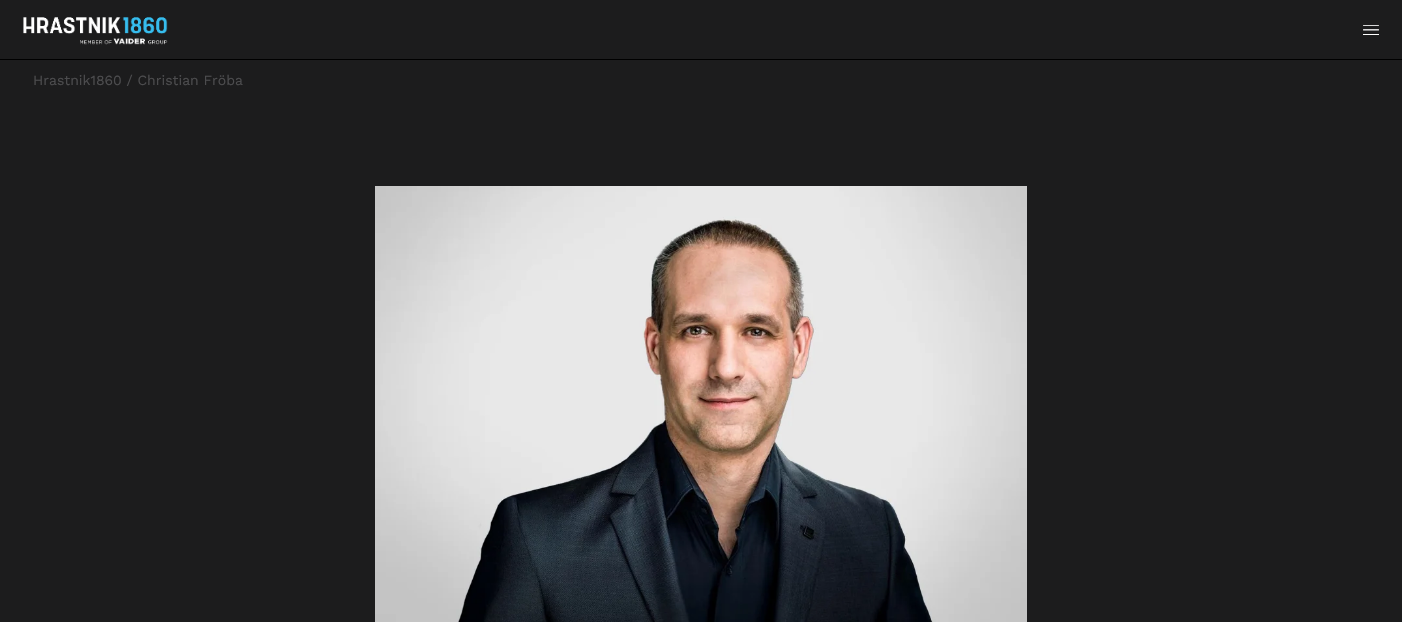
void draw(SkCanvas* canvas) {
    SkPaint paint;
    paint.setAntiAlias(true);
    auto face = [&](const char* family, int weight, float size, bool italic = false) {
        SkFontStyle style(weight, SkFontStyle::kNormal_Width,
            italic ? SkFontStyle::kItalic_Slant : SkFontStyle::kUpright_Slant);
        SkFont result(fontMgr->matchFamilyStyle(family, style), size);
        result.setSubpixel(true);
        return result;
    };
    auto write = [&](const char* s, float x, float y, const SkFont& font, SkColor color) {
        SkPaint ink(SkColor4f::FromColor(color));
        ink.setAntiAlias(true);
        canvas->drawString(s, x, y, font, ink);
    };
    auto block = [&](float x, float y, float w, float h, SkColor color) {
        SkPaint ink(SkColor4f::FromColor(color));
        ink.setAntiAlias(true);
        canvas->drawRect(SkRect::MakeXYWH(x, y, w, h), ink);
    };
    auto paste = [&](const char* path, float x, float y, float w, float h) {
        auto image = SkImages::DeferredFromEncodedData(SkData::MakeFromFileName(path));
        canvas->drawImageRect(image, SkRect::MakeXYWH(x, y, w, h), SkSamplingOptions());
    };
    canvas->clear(SkColorSetRGB(28, 28, 29));
    block(0, 59, 1402, 1, SK_ColorBLACK);
    paste("pic1.png", 23, 17, 145, 28);
    paste("pic2.png", 1363, 25, 16, 10);
    auto kFont1 = face("Work Sans", 400, 14);
    write("Hrastnik1860 / Christian Fröba", 33, 85, kFont1, SkColorSetRGB(76, 76, 78));
    paste("pic3.png", 375, 186, 652, 436);
}
